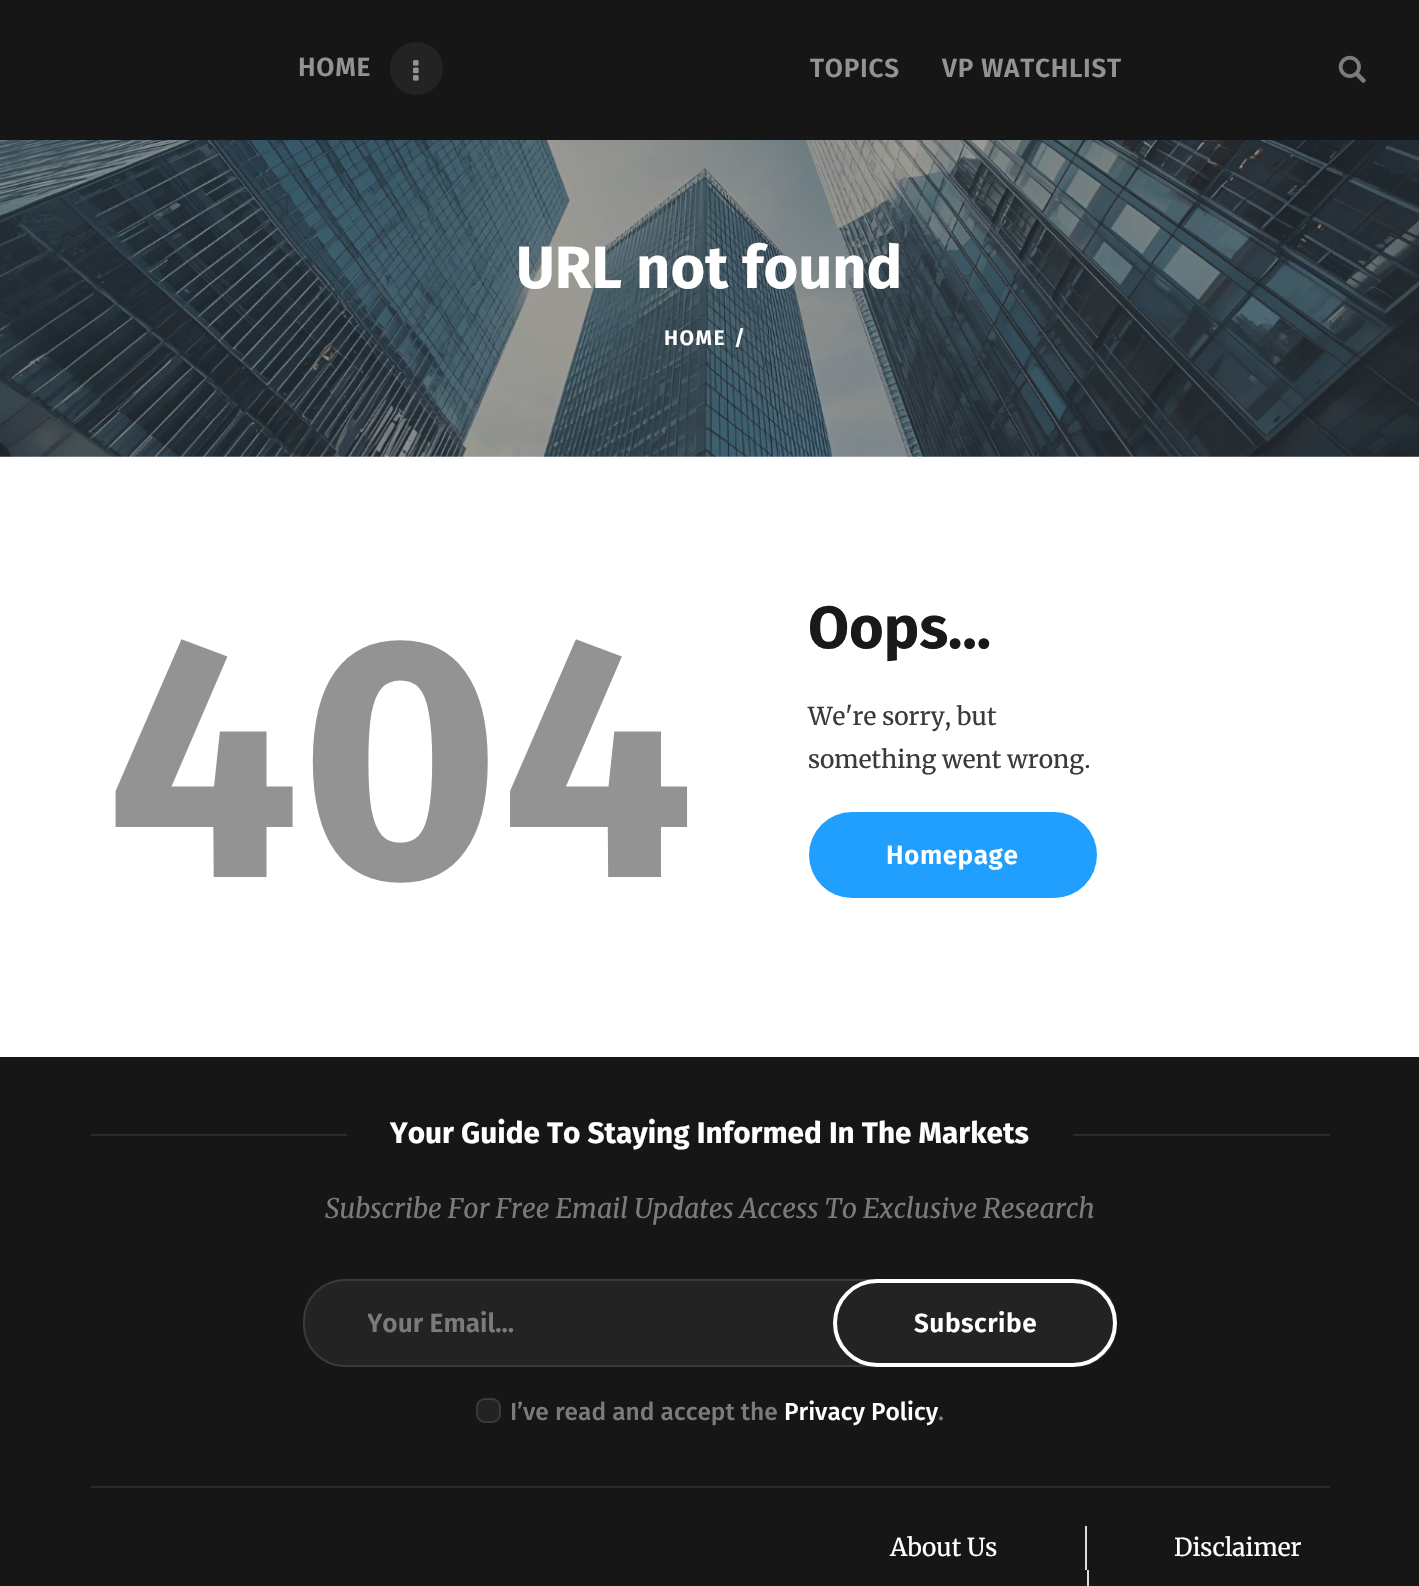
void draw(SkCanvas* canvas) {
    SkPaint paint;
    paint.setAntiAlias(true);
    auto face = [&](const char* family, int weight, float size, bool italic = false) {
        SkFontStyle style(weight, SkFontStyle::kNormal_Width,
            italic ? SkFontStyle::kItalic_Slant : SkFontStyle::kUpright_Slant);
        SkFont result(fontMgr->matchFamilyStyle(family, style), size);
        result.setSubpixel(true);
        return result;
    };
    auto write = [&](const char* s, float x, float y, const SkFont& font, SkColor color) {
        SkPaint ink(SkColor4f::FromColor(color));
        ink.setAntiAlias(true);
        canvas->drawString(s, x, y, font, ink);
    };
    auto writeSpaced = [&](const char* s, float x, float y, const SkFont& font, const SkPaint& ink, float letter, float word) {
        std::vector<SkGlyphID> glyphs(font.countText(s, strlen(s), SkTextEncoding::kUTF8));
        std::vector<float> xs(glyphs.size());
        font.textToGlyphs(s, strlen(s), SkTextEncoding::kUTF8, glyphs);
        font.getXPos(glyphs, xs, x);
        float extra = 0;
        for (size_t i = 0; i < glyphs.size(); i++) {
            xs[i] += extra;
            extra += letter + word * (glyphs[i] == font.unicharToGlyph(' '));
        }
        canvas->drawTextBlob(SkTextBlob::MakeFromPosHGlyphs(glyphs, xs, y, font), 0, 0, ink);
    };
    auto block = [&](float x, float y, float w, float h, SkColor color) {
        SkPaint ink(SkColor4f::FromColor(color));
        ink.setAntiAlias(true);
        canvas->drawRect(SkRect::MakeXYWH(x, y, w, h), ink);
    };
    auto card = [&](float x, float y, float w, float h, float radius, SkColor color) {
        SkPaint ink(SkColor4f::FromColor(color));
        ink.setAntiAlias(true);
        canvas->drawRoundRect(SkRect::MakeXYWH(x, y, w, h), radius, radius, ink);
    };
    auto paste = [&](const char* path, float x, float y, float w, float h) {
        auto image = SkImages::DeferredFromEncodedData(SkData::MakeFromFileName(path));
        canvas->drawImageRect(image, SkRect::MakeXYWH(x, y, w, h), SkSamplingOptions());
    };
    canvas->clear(SK_ColorWHITE);
    block(0, 0, 1419, 140, SkColorSetRGB(22, 22, 22));
    auto kFont1 = face("Fira Sans", 600, 26.25f);
    paint.setColor(SkColorSetRGB(147, 147, 147));
    writeSpaced("HOME", 298, 76, kFont1, paint, 0.75f, 0);
    paint.setColor(SkColorSetRGB(35, 35, 35));
    canvas->drawCircle(416.5f, 68.5f, 26.5f, paint);
    paste("pic1.png", 413, 60, 6, 21);
    paint.setColor(SkColorSetRGB(147, 147, 147));
    writeSpaced("TOPICS", 810, 77, kFont1, paint, 0.75f, 0);
    writeSpaced("VP WATCHLIST", 942, 77, kFont1, paint, 0.75f, 0);
    paste("pic2.png", 1338, 55, 28, 28);
    paste("pic3.png", 0, 140, 1419, 317);
    auto kFont2 = face("Fira Sans", 700, 59.5f);
    write("URL not found", 516, 288, kFont2, SK_ColorWHITE);
    auto kFont3 = face("Fira Sans", 600, 21);
    paint.setColor(SK_ColorWHITE);
    writeSpaced("HOME", 664, 345, kFont3, paint, 1.5f, 0);
    writeSpaced("/", 734, 345, kFont3, paint, 1.5f, 0);
    auto kFont4 = face("Fira Sans", 700, 343);
    write("404", 106, 877, kFont4, SkColorSetRGB(147, 147, 147));
    write("Oops...", 808, 648, kFont2, SkColorSetRGB(25, 25, 25));
    auto kFont5 = face("Merriweather", 400, 24.5f);
    write("We're sorry, but", 808, 725, kFont5, SkColorSetRGB(59, 59, 59));
    write("something went wrong.", 808, 768, kFont5, SkColorSetRGB(59, 59, 59));
    card(809, 812, 288, 86, 43, SkColorSetRGB(33, 159, 255));
    writeSpaced("Homepage", 886, 864, kFont1, paint, 0.5f, 0);
    block(0, 1057, 1419, 529, SkColorSetRGB(22, 22, 22));
    block(91, 1134, 256, 2, SkColorSetRGB(43, 43, 43));
    auto kFont6 = face("Fira Sans", 700, 29.75f);
    write("Your Guide To Staying Informed In The Markets", 390, 1143, kFont6, SK_ColorWHITE);
    block(1073, 1134, 257, 2, SkColorSetRGB(43, 43, 43));
    auto kFont7 = face("Merriweather", 400, 26.95f, true);
    write("Subscribe For Free Email Updates Access To Exclusive Research", 325, 1218, kFont7, SkColorSetRGB(123, 123, 123));
    paint.setColor(SkColorSetRGB(35, 35, 35));
    canvas->drawRoundRect(SkRect::MakeXYWH(304, 1280, 812, 86), 41, 41, paint);
    paint.setStyle(SkPaint::kStroke_Style);
    paint.setStrokeWidth(2);
    paint.setColor(SkColorSetRGB(58, 58, 58));
    canvas->drawRoundRect(SkRect::MakeXYWH(304, 1280, 812, 86), 41, 41, paint);
    canvas->save();
    canvas->clipRect(SkRect::MakeXYWH(368, 1307, 446, 32));
    write("Your Email...", 367, 1332, kFont1, SkColorSetRGB(123, 123, 123));
    canvas->restore();
    paint.setStrokeWidth(4);
    paint.setColor(SK_ColorWHITE);
    canvas->drawRoundRect(SkRect::MakeXYWH(835, 1281, 280, 84), 42, 42, paint);
    paint.setStyle(SkPaint::kFill_Style);
    writeSpaced("Subscribe", 914, 1332, kFont1, paint, 0.5f, 0);
    paint.setColor(SkColorSetRGB(35, 35, 35));
    canvas->drawRoundRect(SkRect::MakeXYWH(477, 1399, 23, 23), 8, 8, paint);
    paint.setStyle(SkPaint::kStroke_Style);
    paint.setStrokeWidth(2);
    paint.setColor(SkColorSetRGB(58, 58, 58));
    canvas->drawRoundRect(SkRect::MakeXYWH(477, 1399, 23, 23), 8, 8, paint);
    auto kFont8 = face("Fira Sans", 500, 24.5f);
    write("I’ve read and accept the", 510, 1420, kFont8, SkColorSetRGB(123, 123, 123));
    write("Privacy Policy", 784, 1420, kFont8, SK_ColorWHITE);
    write(".", 938, 1420, kFont8, SkColorSetRGB(123, 123, 123));
    block(91, 1486, 1239, 2, SkColorSetRGB(43, 43, 43));
    write("About Us", 890, 1556, kFont5, SK_ColorWHITE);
    block(1085, 1526, 2, 44, SkColorSetRGB(221, 221, 221));
    write("Disclaimer", 1174, 1556, kFont5, SK_ColorWHITE);
    block(1087, 1570, 2, 16, SkColorSetRGB(221, 221, 221));
}
